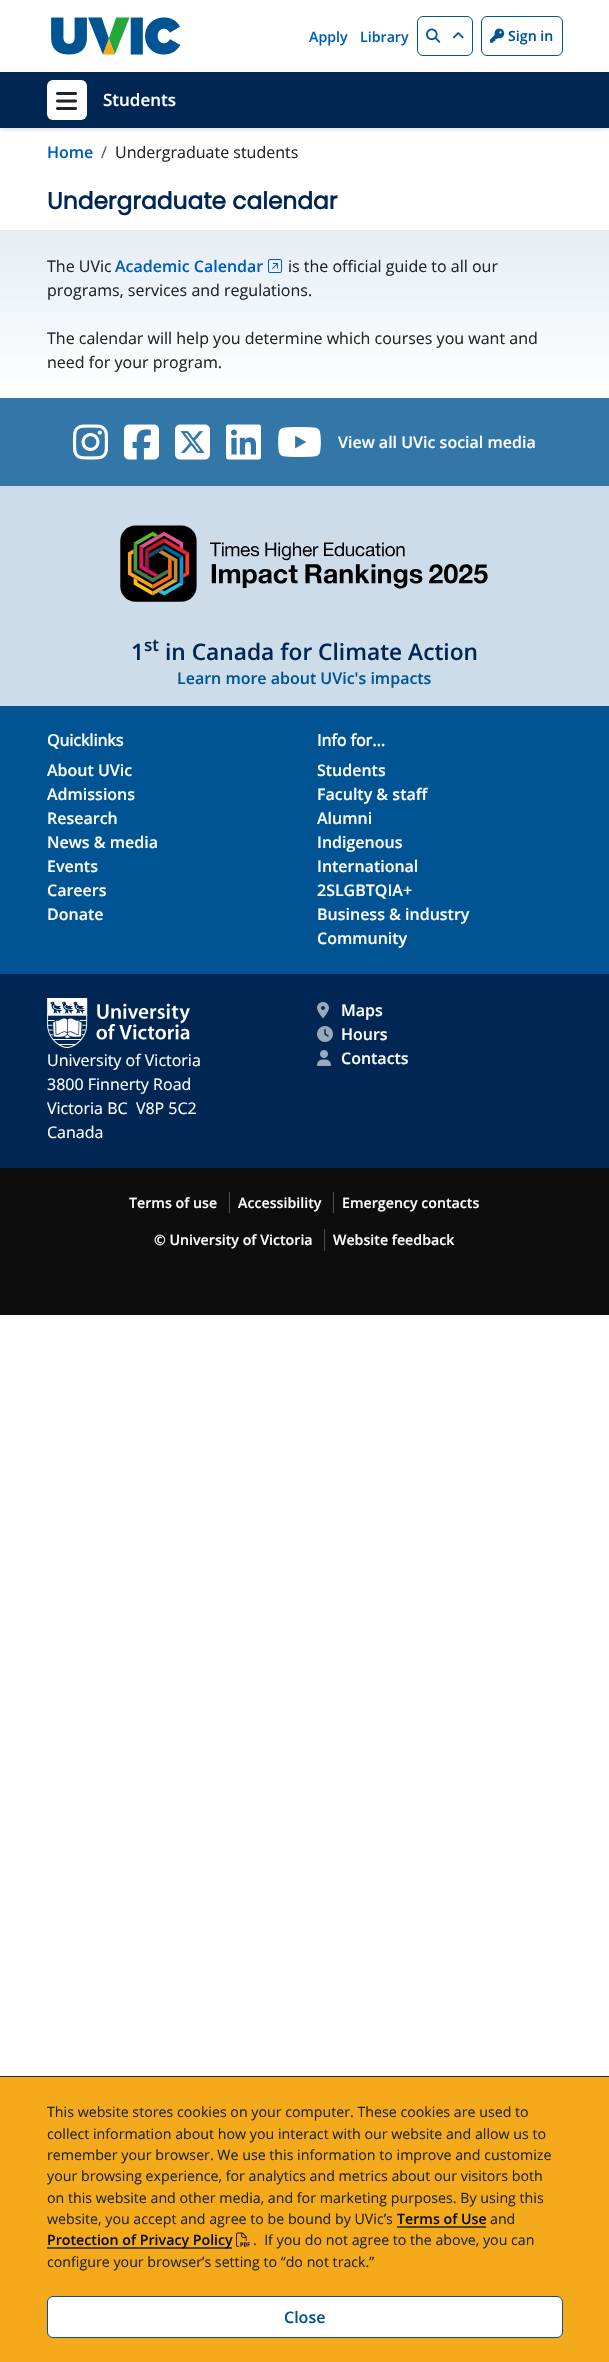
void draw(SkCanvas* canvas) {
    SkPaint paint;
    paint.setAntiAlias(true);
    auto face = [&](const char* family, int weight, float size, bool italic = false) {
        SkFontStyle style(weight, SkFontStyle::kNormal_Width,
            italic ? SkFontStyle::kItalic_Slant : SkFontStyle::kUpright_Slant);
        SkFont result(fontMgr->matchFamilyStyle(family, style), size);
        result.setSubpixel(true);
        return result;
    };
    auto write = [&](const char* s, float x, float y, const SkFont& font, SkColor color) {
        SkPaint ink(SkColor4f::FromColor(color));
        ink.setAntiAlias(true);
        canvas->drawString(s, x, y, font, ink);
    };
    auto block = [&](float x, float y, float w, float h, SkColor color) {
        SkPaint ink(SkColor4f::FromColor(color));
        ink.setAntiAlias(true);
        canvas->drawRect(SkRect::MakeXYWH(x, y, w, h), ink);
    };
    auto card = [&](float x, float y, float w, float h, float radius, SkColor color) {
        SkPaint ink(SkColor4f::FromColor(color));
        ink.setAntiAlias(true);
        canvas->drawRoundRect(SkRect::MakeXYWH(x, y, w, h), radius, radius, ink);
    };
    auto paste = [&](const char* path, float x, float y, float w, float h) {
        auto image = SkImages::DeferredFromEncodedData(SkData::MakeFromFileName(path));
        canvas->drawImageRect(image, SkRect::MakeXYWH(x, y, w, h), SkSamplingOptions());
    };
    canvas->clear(SK_ColorWHITE);
    paint.setColor(SkColorSetARGB(31, 13, 13, 13));
    paint.setMaskFilter(SkMaskFilter::MakeBlur(kNormal_SkBlurStyle, 2));
    canvas->drawRect(SkRect::MakeXYWH(0, 74, 609, 56), paint);
    paint.setMaskFilter(nullptr);
    block(0, 72, 609, 56, SkColorSetRGB(0, 39, 84));
    card(47, 80, 40, 40, 6, SK_ColorWHITE);
    paint.setMaskFilter(SkMaskFilter::MakeBlur(kNormal_SkBlurStyle, 2));
    canvas->drawRect(SkRect::MakeXYWH(0, 2, 609, 72), paint);
    paint.setMaskFilter(nullptr);
    block(0, 0, 609, 72, SK_ColorWHITE);
    paste("pic1.png", 51, 17, 130, 38);
    auto kFont1 = face("Open Sans", 600, 14.2f);
    write("Apply", 309, 42, kFont1, SkColorSetRGB(0, 94, 189));
    write("Library", 360, 42, kFont1, SkColorSetRGB(0, 94, 189));
    paint.setStyle(SkPaint::kStroke_Style);
    paint.setStrokeWidth(1);
    paint.setColor(SkColorSetRGB(0, 84, 147));
    canvas->drawRoundRect(SkRect::MakeXYWH(417.5f, 16.5f, 55, 39), 5.5f, 5.5f, paint);
    paste("pic2.png", 426, 28, 15, 15);
    paste("pic3.png", 452, 32, 12, 7);
    canvas->drawRoundRect(SkRect::MakeXYWH(481.5f, 16.5f, 81, 39), 5.5f, 5.5f, paint);
    paste("pic4.png", 490, 28, 15, 15);
    write("Sign in", 508, 41, kFont1, SkColorSetRGB(0, 84, 147));
    paste("pic5.png", 56, 92, 21, 18);
    auto kFont2 = face("Open Sans", 600, 17);
    write("Students", 103, 106, kFont2, SK_ColorWHITE);
    block(0, 2077, 609, 285, SkColorSetRGB(245, 170, 28));
    block(0, 2076, 609, 1, SkColorSetRGB(33, 37, 41));
    auto kFont3 = face("Open Sans", 400, 14.2f);
    write("This website stores cookies on your computer. These cookies are used to", 47, 2117, kFont3, SkColorSetRGB(33, 37, 41));
    write("collect information about how you interact with our website and allow us to", 47, 2139, kFont3, SkColorSetRGB(33, 37, 41));
    write("remember your browser. We use this information to improve and customize", 47, 2160, kFont3, SkColorSetRGB(33, 37, 41));
    write("your browsing experience, for analytics and metrics about our visitors both", 47, 2181, kFont3, SkColorSetRGB(33, 37, 41));
    write("on this website and other media, and for marketing purposes. By using this", 47, 2203, kFont3, SkColorSetRGB(33, 37, 41));
    write("website, you accept and agree to be bound by UVic’s", 47, 2224, kFont3, SkColorSetRGB(33, 37, 41));
    write("Terms of Use", 397, 2224, kFont1, SkColorSetRGB(13, 13, 13));
    block(397, 2226, 89, 2, SkColorSetRGB(86, 67, 32));
    write("and", 490, 2224, kFont3, SkColorSetRGB(33, 37, 41));
    block(47, 2247, 185, 2, SkColorSetRGB(86, 67, 32));
    write("Protection of Privacy Policy", 47, 2245, kFont1, SkColorSetRGB(13, 13, 13));
    paste("pic6.png", 236, 2232, 14, 15);
    write(".  If you do not agree to the above, you can", 253, 2245, kFont3, SkColorSetRGB(33, 37, 41));
    write("configure your browser’s setting to “do not track.”", 47, 2267, kFont3, SkColorSetRGB(33, 37, 41));
    paint.setStyle(SkPaint::kFill_Style);
    paint.setColor(SK_ColorWHITE);
    canvas->drawRoundRect(SkRect::MakeXYWH(47.5f, 2296.5f, 515, 41), 5.5f, 5.5f, paint);
    paint.setStyle(SkPaint::kStroke_Style);
    paint.setColor(SkColorSetRGB(0, 84, 147));
    canvas->drawRoundRect(SkRect::MakeXYWH(47.5f, 2296.5f, 515, 41), 5.5f, 5.5f, paint);
    auto kFont4 = face("Open Sans", 600, 16);
    write("Close", 284, 2323, kFont4, SkColorSetRGB(0, 84, 147));
    write("Home", 47, 158, kFont4, SkColorSetRGB(0, 94, 189));
    auto kFont5 = face("Open Sans", 400, 16);
    write("/", 101, 158, kFont5, SkColorSetRGB(89, 92, 95));
    write("Undergraduate students", 115, 158, kFont5, SkColorSetRGB(33, 37, 41));
    auto kFont6 = face("Poppins", 700, 23.3f);
    write("Undergraduate calendar", 47, 209, kFont6, SkColorSetRGB(0, 39, 84));
    paint.setStyle(SkPaint::kFill_Style);
    {
        const SkColor colors[] = {SK_ColorWHITE, SkColorSetRGB(229, 237, 244)};
        const float stops[] = {0, 1};
        const SkPoint ends[] = {{305, 398}, {305, 230}};
        paint.setShader(SkGradientShader::MakeLinear(ends, colors, stops, 2, SkTileMode::kClamp));
        paint.setAlpha(255);
    }
    canvas->drawRect(SkRect::MakeXYWH(0, 230, 609, 152), paint);
    write("The UVic", 47, 272, kFont5, SkColorSetRGB(33, 37, 41));
    write("Academic Calendar", 115, 272, kFont4, SkColorSetRGB(0, 94, 189));
    paste("pic7.png", 268, 259, 14, 14);
    write("is the official guide to all our", 288, 272, kFont5, SkColorSetRGB(33, 37, 41));
    write("programs, services and regulations.", 47, 296, kFont5, SkColorSetRGB(33, 37, 41));
    write("The calendar will help you determine which courses you want and", 47, 344, kFont5, SkColorSetRGB(33, 37, 41));
    write("need for your program.", 47, 368, kFont5, SkColorSetRGB(33, 37, 41));
    block(0, 398, 609, 88, SkColorSetRGB(51, 118, 168));
    paste("pic8.png", 73, 424, 35, 36);
    paste("pic9.png", 124, 424, 35, 36);
    paste("pic10.png", 175, 424, 35, 36);
    paste("pic11.png", 226, 424, 35, 36);
    paste("pic12.png", 278, 427, 43, 30);
    write("View all UVic social media", 338, 448, kFont4, SK_ColorWHITE);
    block(0, 486, 609, 220, SkColorSetRGB(204, 221, 233));
    paste("pic13.png", 120, 525, 368, 77);
    auto kFont7 = face("Open Sans", 600, 22.75f);
    write("1", 131, 660, kFont7, SkColorSetRGB(0, 39, 84));
    write("st", 144, 651, kFont2, SkColorSetRGB(0, 39, 84));
    write("in Canada for Climate Action", 165, 660, kFont7, SkColorSetRGB(0, 39, 84));
    write("Learn more about UVic's impacts", 177, 684, kFont4, SkColorSetRGB(0, 84, 147));
    block(0, 706, 609, 268, SkColorSetRGB(0, 84, 147));
    auto kFont8 = face("Open Sans", 700, 16);
    write("Quicklinks", 47, 746, kFont8, SK_ColorWHITE);
    write("About UVic", 47, 776, kFont4, SK_ColorWHITE);
    write("Admissions", 47, 800, kFont4, SK_ColorWHITE);
    write("Research", 47, 824, kFont4, SK_ColorWHITE);
    write("News & media", 47, 848, kFont4, SK_ColorWHITE);
    write("Events", 47, 872, kFont4, SK_ColorWHITE);
    write("Careers", 47, 896, kFont4, SK_ColorWHITE);
    write("Donate", 47, 920, kFont4, SK_ColorWHITE);
    write("Info for...", 317, 746, kFont8, SK_ColorWHITE);
    write("Students", 317, 776, kFont4, SK_ColorWHITE);
    write("Faculty & staff", 317, 800, kFont4, SK_ColorWHITE);
    write("Alumni", 317, 824, kFont4, SK_ColorWHITE);
    write("Indigenous", 317, 848, kFont4, SK_ColorWHITE);
    write("International", 317, 872, kFont4, SK_ColorWHITE);
    write("2SLGBTQIA+", 317, 896, kFont4, SK_ColorWHITE);
    write("Business & industry", 317, 920, kFont4, SK_ColorWHITE);
    write("Community", 317, 944, kFont4, SK_ColorWHITE);
    block(0, 974, 609, 194, SkColorSetRGB(0, 39, 84));
    paste("pic14.png", 317, 1002, 12, 16);
    write("Maps", 341, 1016, kFont4, SK_ColorWHITE);
    paste("pic15.png", 317, 1026, 16, 16);
    write("Hours", 341, 1040, kFont4, SK_ColorWHITE);
    paste("pic16.png", 317, 1050, 14, 16);
    write("Contacts", 341, 1064, kFont4, SK_ColorWHITE);
    paste("pic17.png", 47, 998, 143, 50);
    write("University of Victoria", 47, 1066, kFont5, SK_ColorWHITE);
    write("3800 Finnerty Road", 47, 1090, kFont5, SK_ColorWHITE);
    write("Victoria BC  V8P 5C2", 47, 1114, kFont5, SK_ColorWHITE);
    write("Canada", 47, 1138, kFont5, SK_ColorWHITE);
    block(0, 1168, 609, 147, SkColorSetRGB(13, 13, 13));
    write("Terms of use", 129, 1208, kFont1, SK_ColorWHITE);
    block(229, 1192, 1, 21, SkColorSetRGB(73, 80, 87));
    write("Accessibility", 238, 1208, kFont1, SK_ColorWHITE);
    block(333, 1192, 1, 21, SkColorSetRGB(73, 80, 87));
    write("Emergency contacts", 342, 1208, kFont1, SK_ColorWHITE);
    write("© University of Victoria", 154, 1245, kFont1, SK_ColorWHITE);
    block(324, 1229, 1, 22, SkColorSetRGB(73, 80, 87));
    write("Website feedback", 333, 1245, kFont1, SK_ColorWHITE);
}
